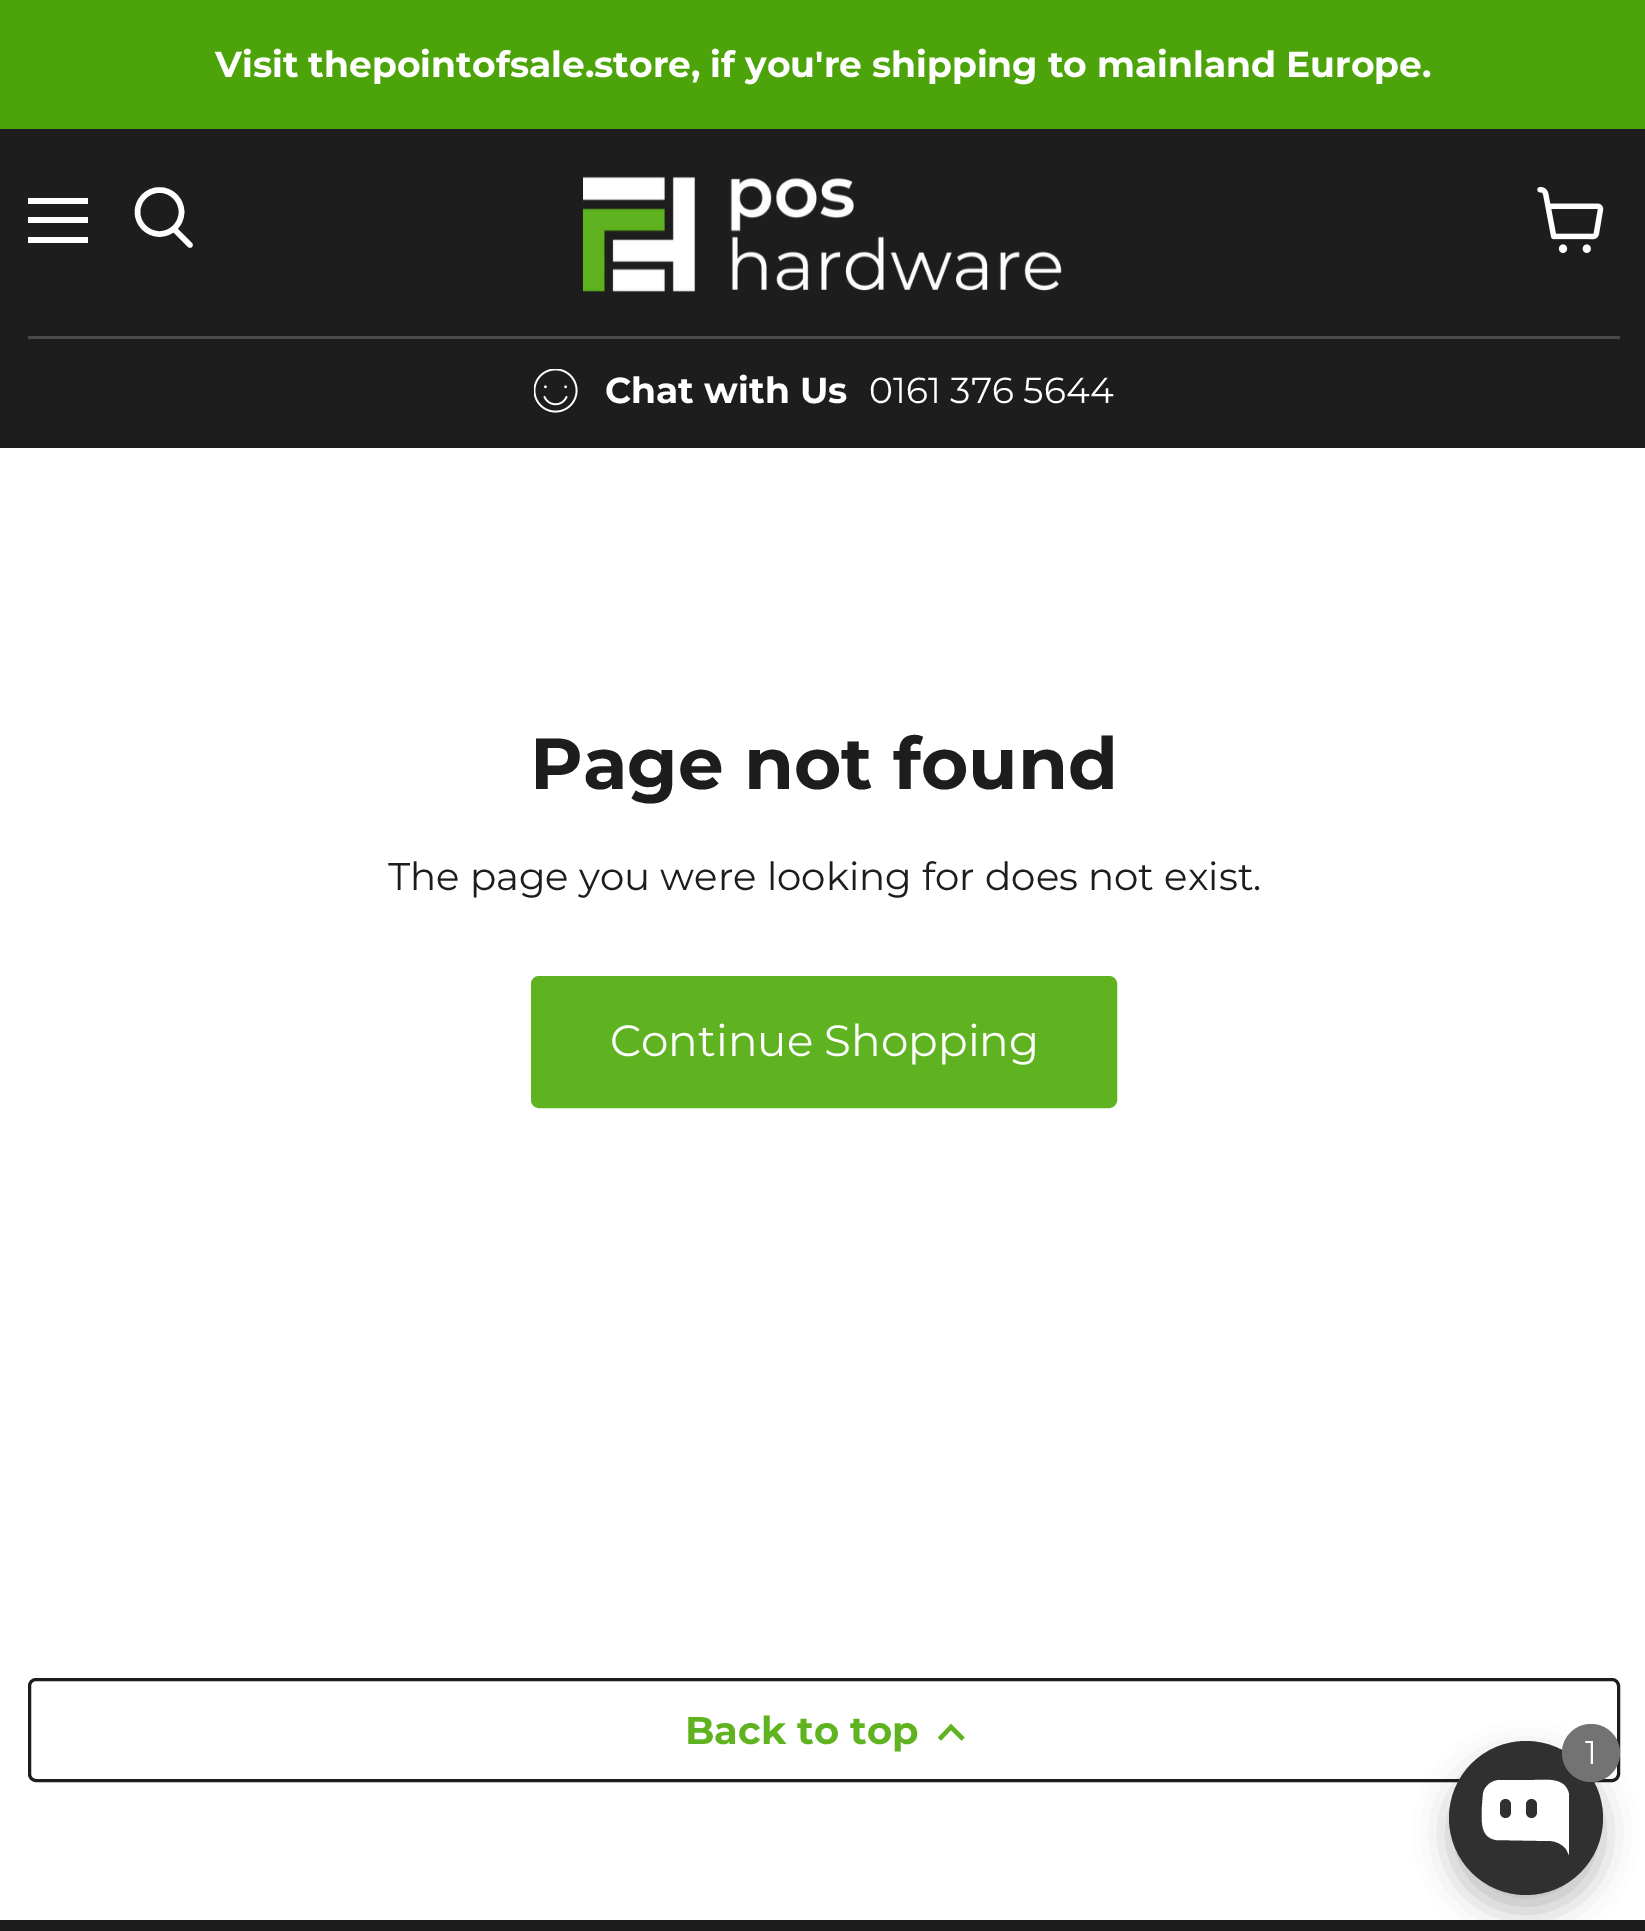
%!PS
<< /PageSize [1645 1931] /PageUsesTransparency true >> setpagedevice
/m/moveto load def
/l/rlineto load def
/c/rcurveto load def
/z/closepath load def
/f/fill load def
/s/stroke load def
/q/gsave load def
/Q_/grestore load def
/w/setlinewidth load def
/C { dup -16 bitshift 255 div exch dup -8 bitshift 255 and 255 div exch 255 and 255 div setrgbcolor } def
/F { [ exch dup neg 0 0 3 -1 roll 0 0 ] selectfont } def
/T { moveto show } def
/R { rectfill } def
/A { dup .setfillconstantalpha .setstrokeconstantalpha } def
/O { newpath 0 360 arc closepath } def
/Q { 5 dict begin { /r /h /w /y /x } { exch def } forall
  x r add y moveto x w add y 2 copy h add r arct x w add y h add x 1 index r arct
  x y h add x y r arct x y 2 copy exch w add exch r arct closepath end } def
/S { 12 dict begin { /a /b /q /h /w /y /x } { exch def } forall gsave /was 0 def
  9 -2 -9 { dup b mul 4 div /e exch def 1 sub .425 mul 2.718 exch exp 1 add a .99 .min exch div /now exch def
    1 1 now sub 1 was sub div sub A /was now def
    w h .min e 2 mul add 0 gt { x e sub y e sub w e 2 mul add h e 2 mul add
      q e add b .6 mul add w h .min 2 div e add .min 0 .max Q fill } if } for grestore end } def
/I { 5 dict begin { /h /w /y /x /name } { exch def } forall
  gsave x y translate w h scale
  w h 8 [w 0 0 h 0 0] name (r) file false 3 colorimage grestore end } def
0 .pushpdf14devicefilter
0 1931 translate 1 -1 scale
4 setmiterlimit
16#FFFFFF C
0 0 1645 1931 R
16#4CA40A C
0 0 1645 129 R
/Montserrat-Bold 36.1 F
16#FFFFFF C
215 77 m -.25 0 32 (Visit thepointofsale.store, if you're shipping to mainland Europe.) widthshow
16#1D1D1D C
0 129 1645 319 R
16#FFFFFF C
28 198 60 6 R
28 217 60 6 R
28 237 60 6 R
5.5 w
1 setlinecap
190 245 m -15.5 -15.5 l s
0 setlinecap
159.5 212 22 O s
(1.rgb) 1537 187 67 66 I
(2.rgb) 583 176 479 116 I
16#4A4A4A C
28 336 1592 3 R
(3.rgb) 534 369 44 44 I
16#FFFFFF C
(Chat with Us) 605 403 T
/Montserrat-Regular 36.1 F
(0161 376 5644) 869 403 T
/Montserrat-Bold 72.25 F
16#1D1D1D C
(Page not found) 530 789 T
/Montserrat-Regular 38.7 F
(The page you were looking for does not exist.) 388 890 T
16#5FB320 C
532.5 977.5 583 129 6.5 Q q f Q_
3 w
s
/Montserrat-Regular 43.75 F
16#FFFFFF C
(Continue Shopping) 610 1056 T
16#1D1D1D C
29.5 1679.5 1589 101 6.5 Q s
/Montserrat-Bold 38.5 F
16#5FB320 C
(Back to top) 685 1744 T
4.3 w
2 setlinecap
951 1727 m -10 10.5 l 951 1727 m 10.5 10.5 l s
16#1D1D1D C
0 1920 1645 11 R
16#000000 C
1449 1757 154 154 77 16.5 .25 S
16#303030 C
1526 1818 77 O f
16#FFFFFF C
1500 1780 m -8 0 -16 6 -17 14 c -1 12 l 0 13 -3 31 14 34 c 54 1 l 6 0 12 3 16 8 c 3 6 l 0 -1 l 0 -60 l -4 -17 -22 -14 -35 -14 c z eofill
16#303030 C
1500 1799 11 19 5.5 Q f
1526 1799 11 19 5.5 Q f
16#737373 C
1591 1753 29 O f
/Montserrat-Regular 33 F
16#FFFFFF C
(1) 1585 1764 T
.poppdf14devicefilter showpage
